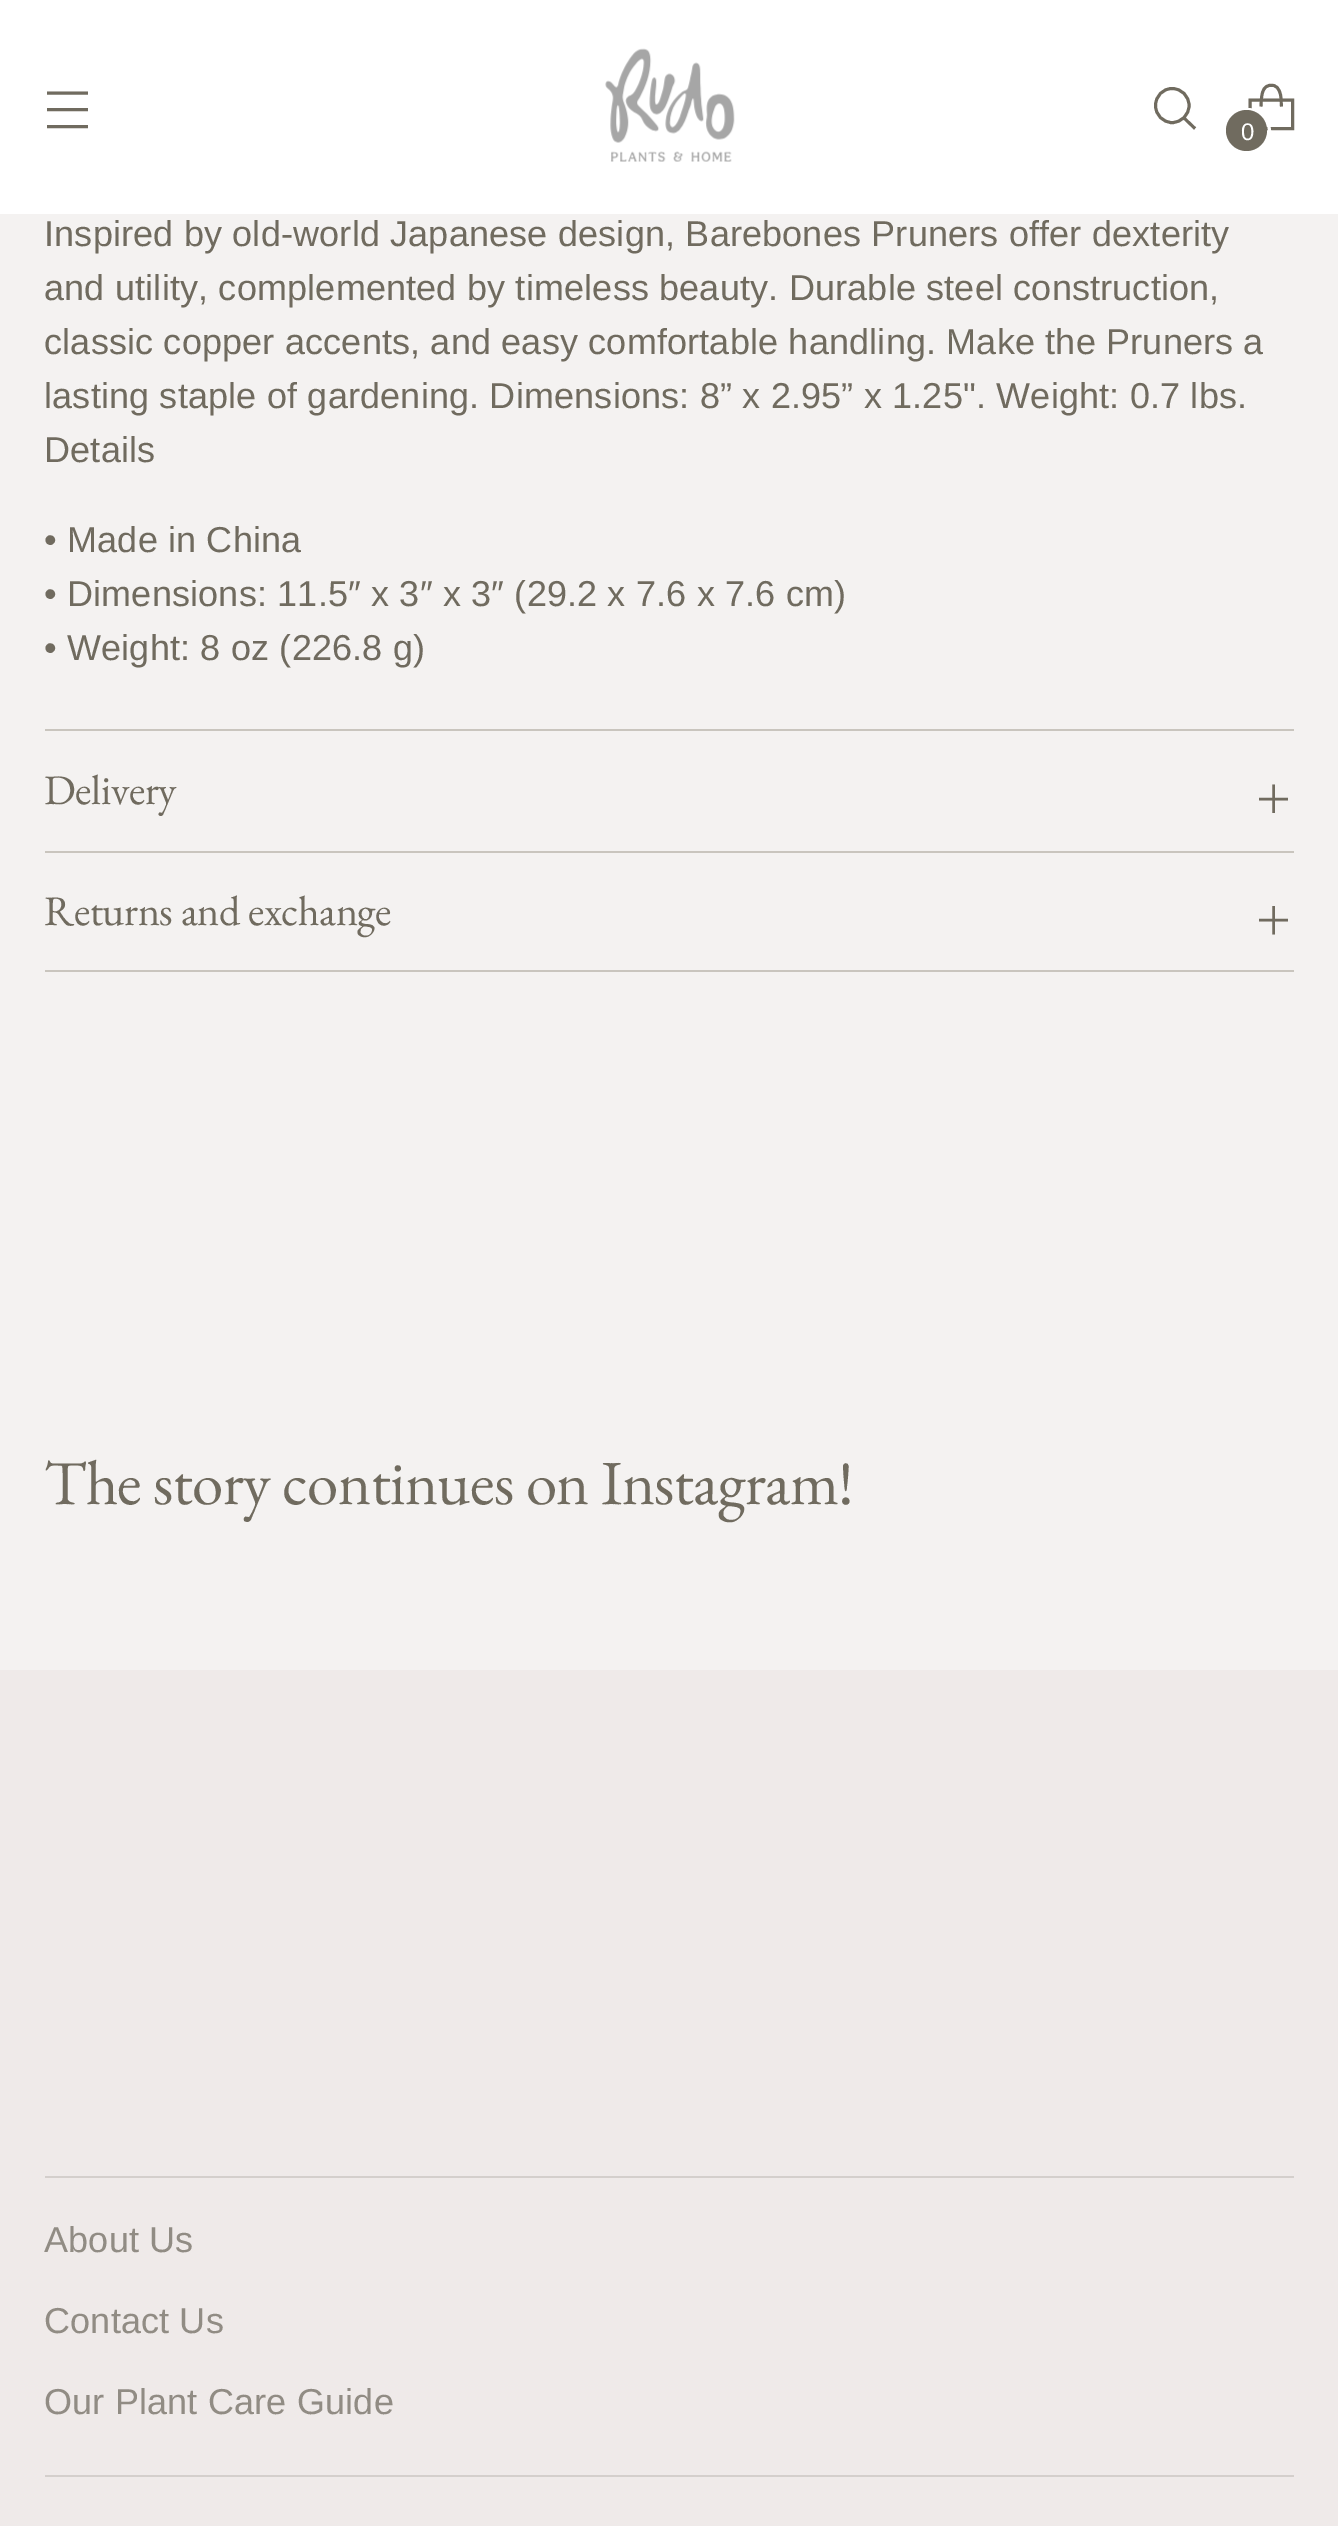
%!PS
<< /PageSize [1338 2526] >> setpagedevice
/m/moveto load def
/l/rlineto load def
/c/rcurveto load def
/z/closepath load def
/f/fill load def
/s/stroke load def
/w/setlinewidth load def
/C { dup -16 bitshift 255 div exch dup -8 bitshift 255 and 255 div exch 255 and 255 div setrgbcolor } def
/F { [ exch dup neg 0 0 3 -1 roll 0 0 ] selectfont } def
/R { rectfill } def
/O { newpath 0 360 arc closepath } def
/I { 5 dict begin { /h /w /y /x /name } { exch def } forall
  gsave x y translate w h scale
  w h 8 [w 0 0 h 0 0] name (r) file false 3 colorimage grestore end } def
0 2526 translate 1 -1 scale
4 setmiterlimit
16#F4F2F1 C
0 0 1338 2526 R
16#FFFFFF C
0 0 1338 214 R
16#706B5F C
2.9 w
47 109.5 m 41 0 l 47 93 m 41 0 l 47 126.5 m 41 0 l s
(1.rgb) 605 48 130 114 I
1 setlinecap
1172 122.5 m 9.5 0 17 -7.5 17 -17 c 0 -9.5 -7.5 -17 -17 -17 c -9 0 -16.5 7.5 -16.5 17 c 0 9.5 7.5 17 16.5 17 c z s
0 setlinecap
1184 118 m 11 10.5 l s
2 setlinejoin
1281.5 106.5 m -.5 -5 0 -10.5 -2 -15 c -1 -3 -3 -5.5 -6 -6 c -13 -2.5 -12 13.5 -12.5 21 c s
0 setlinejoin
1292.5 128.5 m 0 -28.5 l -42.5 0 l 0 28.5 l z s
16#FFFFFF C
3 w
1247.5 131.5 22 O s
16#706B5F C
1246.5 130.5 20.5 O f
/Arimo-Regular 24 F
16#FFFFFF C
1241 140 m .18 0 (0) ashow
16#C9C5BE C
45 729 1249 2 R
/Arimo-Regular 36 F
16#706B5F C
44 246 m .18 0 (Inspired by old-world Japanese design, Barebones Pruners offer dexterity) ashow
44 300 m .18 0 (and utility, complemented by timeless beauty. Durable steel construction,) ashow
44 354 m .18 0 (classic copper accents, and easy comfortable handling. Make the Pruners a) ashow
44 408 m .18 0 (lasting staple of gardening. Dimensions: 8” x 2.95” x 1.25". Weight: 0.7 lbs.) ashow
44 462 m .18 0 (Details) ashow
44 552 m .18 0 (• Made in China) ashow
44 606 m .18 0 (• Dimensions: 11.5″ x 3″ x 3″ \(29.2 x 7.6 x 7.6 cm\)) ashow
44 660 m .18 0 (• Weight: 8 oz \(226.8 g\)) ashow
16#C9C5BE C
45 851 1249 2 R
/EBGaramond-Regular 42 F
16#706B5F C
44 804 m -.4 0 (Delivery) ashow
2.6 w
1259 799 m 14.5 0 l 1288 799 m -14.5 0 l 1273.5 799 m 0 -14.5 l 1273.5 799 m 0 14 l s
16#C9C5BE C
45 970 1249 2 R
16#706B5F C
44 925 m -.4 0 (Returns and exchange) ashow
1259 920 m 14.5 0 l 1288 920 m -14.5 0 l 1273.5 920 m 0 -14 l 1273.5 920 m 0 14.5 l s
/EBGaramond-Regular 63 F
44 1504 m -.6 0 (The story continues on Instagram!) ashow
16#EFEAE9 C
0 1670 1338 856 R
16#D4CFCC C
45 2176 1249 2 R
45 2475 1249 2 R
/Arimo-Regular 36 F
16#918C84 C
44 2252 m .18 0 (About Us) ashow
44 2333 m .18 0 (Contact Us) ashow
44 2414 m .18 0 (Our Plant Care Guide) ashow
showpage
